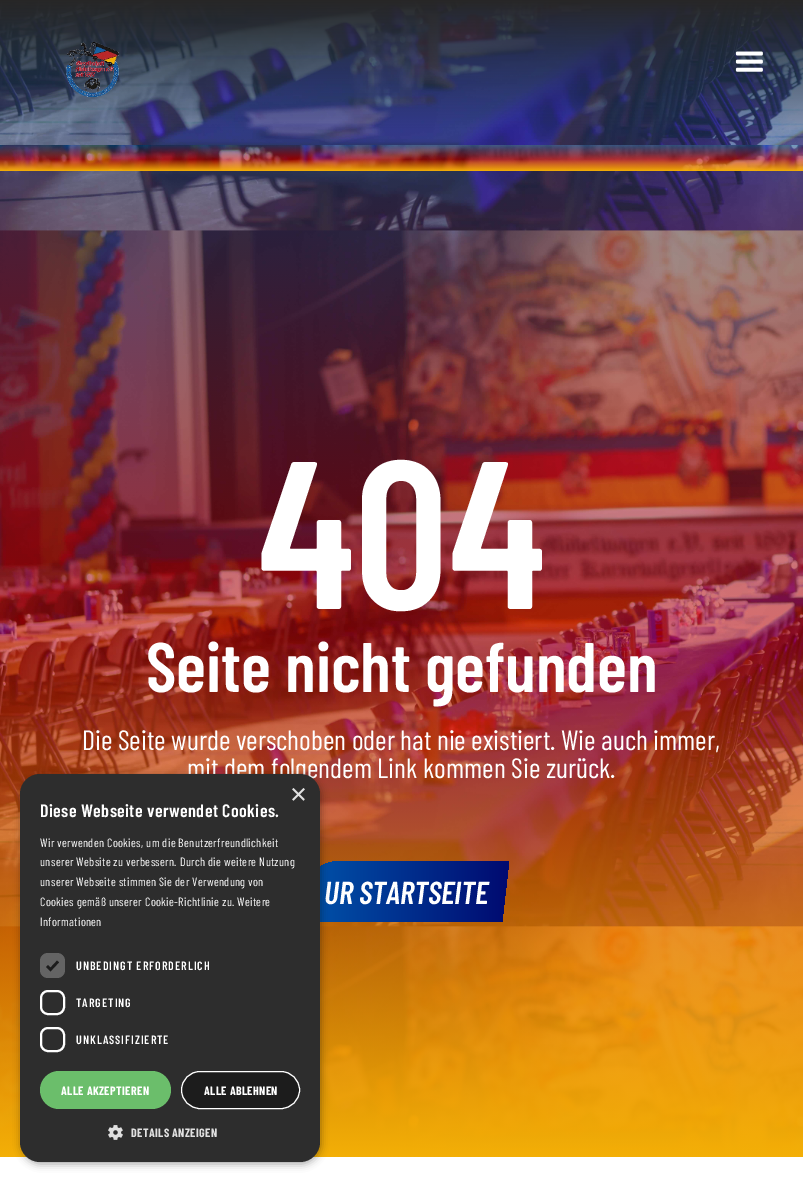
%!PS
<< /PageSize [803 1182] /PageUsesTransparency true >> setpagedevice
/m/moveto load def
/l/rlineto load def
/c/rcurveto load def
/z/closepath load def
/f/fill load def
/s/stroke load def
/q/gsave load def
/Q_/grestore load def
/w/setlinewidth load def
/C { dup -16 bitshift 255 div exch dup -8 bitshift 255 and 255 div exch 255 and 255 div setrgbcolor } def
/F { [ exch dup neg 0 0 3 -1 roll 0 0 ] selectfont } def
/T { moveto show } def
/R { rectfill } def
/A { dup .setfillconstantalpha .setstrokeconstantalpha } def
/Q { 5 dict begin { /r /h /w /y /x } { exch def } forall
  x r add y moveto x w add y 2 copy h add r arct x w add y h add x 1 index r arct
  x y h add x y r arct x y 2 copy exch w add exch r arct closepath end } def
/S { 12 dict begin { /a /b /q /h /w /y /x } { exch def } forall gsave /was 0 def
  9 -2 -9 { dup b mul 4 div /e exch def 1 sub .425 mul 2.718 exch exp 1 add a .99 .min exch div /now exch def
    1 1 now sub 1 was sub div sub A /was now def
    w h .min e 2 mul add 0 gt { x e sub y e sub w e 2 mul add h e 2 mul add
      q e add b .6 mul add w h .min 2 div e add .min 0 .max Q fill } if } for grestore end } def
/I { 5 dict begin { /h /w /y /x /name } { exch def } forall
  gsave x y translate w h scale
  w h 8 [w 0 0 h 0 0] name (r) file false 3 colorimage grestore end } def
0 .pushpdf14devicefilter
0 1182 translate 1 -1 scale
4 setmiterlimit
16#FFFFFF C
0 0 803 1182 R
(1.rgb) 0 0 803 1157 I
(2.rgb) 66 41 53 57 I
(3.rgb) 735 51 28 21 I
(4.rgb) 0 145 803 26 I
/BarlowCondensed-SemiBold 210 F
(404) 258 609 T
/BarlowCondensed-SemiBold 70 F
(Seite nicht gefunden) 146 692 T
/BarlowCondensed-Regular 28 F
(Die Seite wurde verschoben oder hat nie existiert. Wie auch immer,) 82 750 T
(mit dem folgendem Link kommen Sie zurück.) 187 778 T
q 341 861 m 168 0 l -7 61 l -208 0 l 2 -21 l 3 -22 23 -40 45 -40 c z clip newpath
<< /ShadingType 2 /ColorSpace /DeviceRGB /Coords [297 892 506 892] /Extend [true true] /Function << /FunctionType 2 /Domain [0 1] /C0 [0 .341 .678] /C1 [0 .043 .443] /N 1 >> >> shfill Q_
/BarlowCondensed-SemiBoldItalic 31.75 F
324 904 m -.1 0 (UR STARTSEITE) ashow
16#000000 C
21 776 300 388 20 4 .35 S
16#2D2D2D C
20 774 300 388 20 Q f
/LiberationSans-Regular 29 F
16#E0E0E0 C
(×) 290 804 T
/BarlowCondensed-SemiBold 18 F
16#FFFFFF C
40 817 m .4 0 (Diese Webseite verwendet Cookies.) ashow
/BarlowCondensed-Regular 12 F
40 847 m .3 0 (Wir verwenden Cookies, um die Benutzerfreundlichkeit) ashow
40 866 m .3 0 (unserer Website zu verbessern. Durch die weitere Nutzung) ashow
40 886 m .3 0 (unserer Webseite stimmen Sie der Verwendung von) ashow
40 906 m .3 0 (Cookies gemäß unserer Cookie-Richtlinie zu. Weitere) ashow
40 926 m .3 0 (Informationen) ashow
16#646464 C
40 953 25 25 8 Q f
16#1C1C1C C
2.6 w
47 966 m 3.5 3.5 l 7.5 -8 l s
/BarlowCondensed-SemiBold 12 F
16#FFFFFF C
76 970 m 1 0 (UNBEDINGT ERFORDERLICH) ashow
2 w
41 991 23 23 7 Q s
76 1007 m 1 0 (TARGETING) ashow
41 1028 23 23 7 Q s
76 1044 m 1 0 (UNKLASSIFIZIERTE) ashow
16#6BBE6B C
40 1071 131 38 19 Q f
/BarlowCondensed-Bold 12 F
16#FFFFFF C
61 1095 m .4 0 (ALLE AKZEPTIEREN) ashow
16#1C1C1C C
181.5 1071.5 118 37 18.5 Q q f Q_
16#FFFFFF C
1 w
s
204 1095 m .4 0 (ALLE ABLEHNEN) ashow
(5.rgb) 108 1125 15 15 I
16#E0E0E0 C
131 1137 m .4 0 (DETAILS ANZEIGEN) ashow
.poppdf14devicefilter showpage
